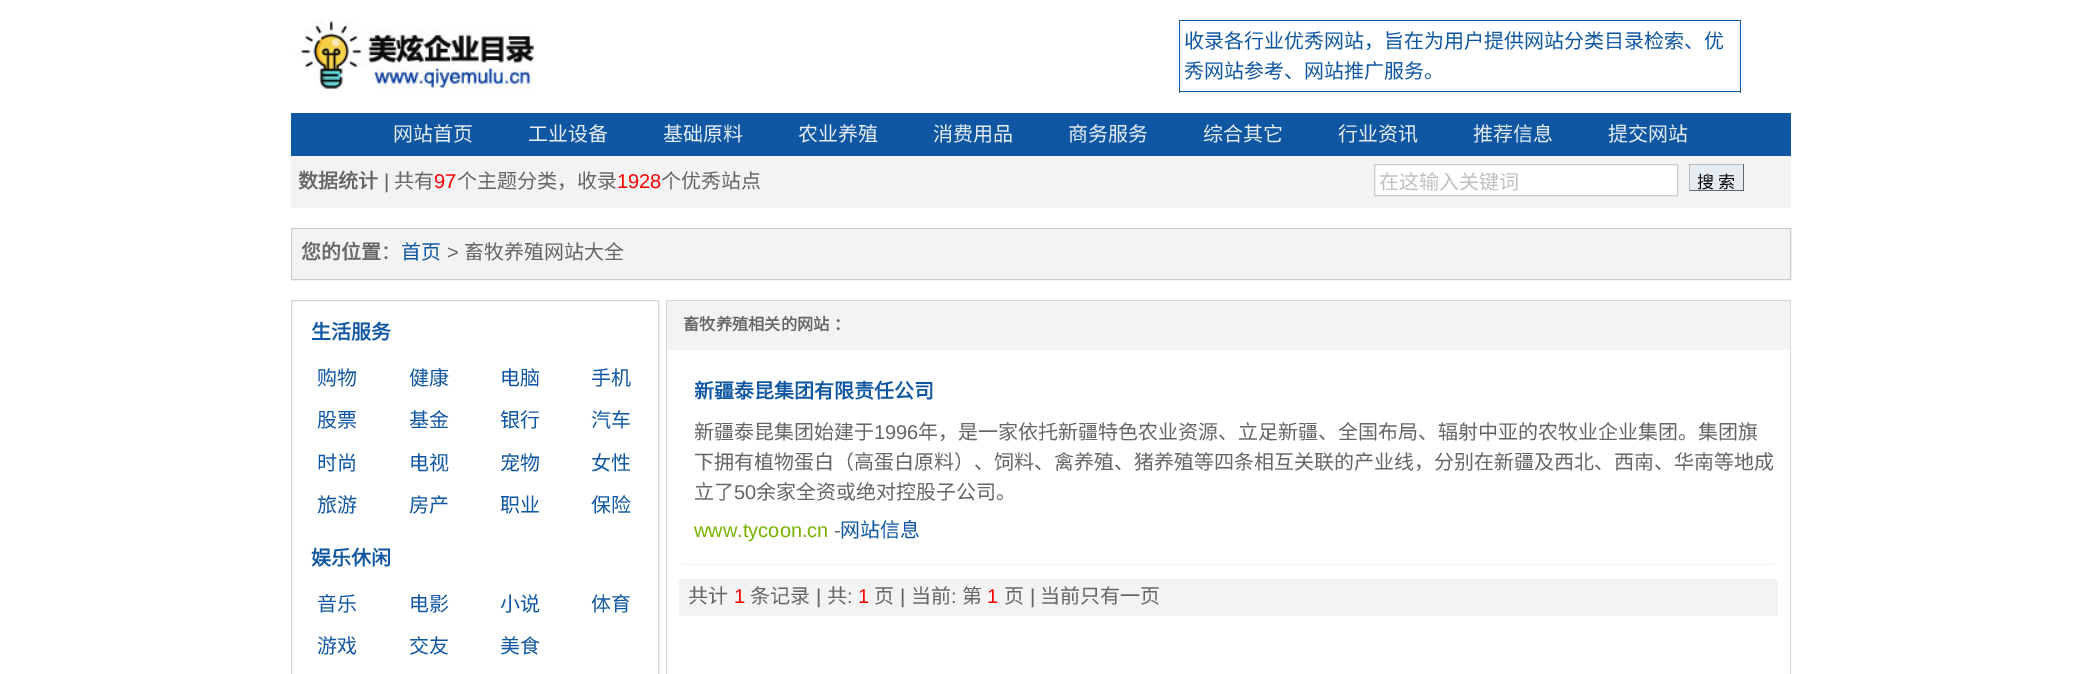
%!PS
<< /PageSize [2081 674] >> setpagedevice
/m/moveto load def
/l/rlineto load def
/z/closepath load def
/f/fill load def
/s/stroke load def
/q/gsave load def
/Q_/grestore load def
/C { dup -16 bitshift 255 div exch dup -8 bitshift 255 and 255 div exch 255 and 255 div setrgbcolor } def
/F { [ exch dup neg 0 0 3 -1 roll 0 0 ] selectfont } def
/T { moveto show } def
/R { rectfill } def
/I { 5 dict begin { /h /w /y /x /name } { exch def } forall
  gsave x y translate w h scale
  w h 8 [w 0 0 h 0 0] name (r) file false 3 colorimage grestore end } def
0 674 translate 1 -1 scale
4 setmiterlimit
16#FFFFFF C
0 0 2081 674 R
(1.rgb) 295 19 239 70 I
16#0F57A2 C
1179 20 562 1 R
1740 20 1 73 R
1179 91 562 1 R
1179 20 1 73 R
/NotoSansCJKSC-Regular 20 F
(收录各行业优秀网站，旨在为用户提供网站分类目录检索、优) 1184 48 T
(秀网站参考、网站推广服务。) 1184 78 T
291 113 1500 43 R
16#E5EDF2 C
(网站首页) 393 141 T
(工业设备) 528 141 T
(基础原料) 663 141 T
(农业养殖) 798 141 T
(消费用品) 933 141 T
(商务服务) 1068 141 T
(综合其它) 1203 141 T
(行业资讯) 1338 141 T
(推荐信息) 1473 141 T
(提交网站) 1608 141 T
16#F3F3F3 C
291 156 1500 52 R
/NotoSansCJKSC-Bold 20 F
16#666666 C
(数据统计) 298 188 T
/LiberationSans-Regular 20 F
(|) 384 188 T
/NotoSansCJKSC-Regular 20 F
(共有) 394 188 T
/LiberationSans-Regular 20 F
16#FF0000 C
(97) 434 188 T
/NotoSansCJKSC-Regular 20 F
16#666666 C
(个主题分类，收录) 457 188 T
/LiberationSans-Regular 20 F
16#FF0000 C
(1928) 617 188 T
/NotoSansCJKSC-Regular 20 F
16#666666 C
(个优秀站点) 661 188 T
16#FFFFFF C
1374.5 164.5 m 303 0 l 0 31 l -303 0 l z q f Q_
16#CCCCCC C
s
16#C0C0C0 C
(在这输入关键词) 1379 189 T
16#E5EDF2 C
1690 165 53 25 R
16#BBBBBB C
1689 164 55 1 R
16#666666 C
1743 164 1 27 R
1689 190 55 1 R
16#BBBBBB C
1689 164 1 27 R
/NotoSansCJKSC-Regular 17 F
16#000000 C
(搜 索) 1697 188 T
16#CCCCCC C
291.5 228.5 1499 51 rectstroke
16#F3F3F3 C
293 229 1497 50 R
/NotoSansCJKSC-Bold 20 F
16#666666 C
(您的位置) 301 259 T
/NotoSansCJKSC-Regular 20 F
(：) 381 259 T
16#0F57A2 C
(首页) 401 259 T
/LiberationSans-Regular 20 F
16#666666 C
(>) 447 259 T
/NotoSansCJKSC-Regular 20 F
(畜牧养殖网站大全) 464 259 T
16#D6D6D6 C
291.5 300.5 367 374 rectstroke
/NotoSansCJKSC-Bold 20 F
16#0F57A2 C
(生活服务) 311 339 T
/NotoSansCJKSC-Regular 20 F
(购物) 317 385 T
(健康) 409 385 T
(电脑) 500 385 T
(手机) 591 385 T
(股票) 317 427 T
(基金) 409 427 T
(银行) 500 427 T
(汽车) 591 427 T
(时尚) 317 470 T
(电视) 409 470 T
(宠物) 500 470 T
(女性) 591 470 T
(旅游) 317 512 T
(房产) 409 512 T
(职业) 500 512 T
(保险) 591 512 T
/NotoSansCJKSC-Bold 20 F
(娱乐休闲) 311 565 T
/NotoSansCJKSC-Regular 20 F
(音乐) 317 611 T
(电影) 409 611 T
(小说) 500 611 T
(体育) 591 611 T
(游戏) 317 653 T
(交友) 409 653 T
(美食) 500 653 T
16#D6D6D6 C
666 300 1125 1 R
1790 300 1 374 R
666 300 1 374 R
16#F3F3F3 C
667 301 1123 49 R
/NotoSansCJKSC-Bold 16.25 F
16#666666 C
683 330 m 1 0 32 (畜牧养殖相关的网站 ：) widthshow
/NotoSansCJKSC-Bold 20 F
16#0F57A2 C
(新疆泰昆集团有限责任公司) 694 398 T
/NotoSansCJKSC-Regular 20 F
16#666666 C
(新疆泰昆集团始建于) 694 439 T
/LiberationSans-Regular 20 F
(1996) 874 439 T
/NotoSansCJKSC-Regular 20 F
(年，是一家依托新疆特色农业资源、立足新疆、全国布局、辐射中亚的农牧业企业集团。集团旗) 918 439 T
(下拥有植物蛋白（高蛋白原料）、饲料、禽养殖、猪养殖等四条相互关联的产业线，分别在新疆及西北、西南、华南等地成) 694 469 T
(立了) 694 499 T
/LiberationSans-Regular 20 F
(50) 734 499 T
/NotoSansCJKSC-Regular 20 F
(余家全资或绝对控股子公司。) 756 499 T
/LiberationSans-Regular 20 F
16#78B200 C
(www.tycoon.cn) 694 537 T
16#666666 C
(-) 834 537 T
/NotoSansCJKSC-Regular 20 F
16#0F57A2 C
(网站信息) 840 537 T
16#F3F3F3 C
683 564 1091 1 R
679 579 1099 37 R
16#666666 C
(共计) 688 603 T
/LiberationSans-Regular 20 F
16#FF0000 C
(1) 734 603 T
/NotoSansCJKSC-Regular 20 F
16#666666 C
(条记录) 750 603 T
/LiberationSans-Regular 20 F
(|) 816 603 T
/NotoSansCJKSC-Regular 20 F
(共) 827 603 T
/LiberationSans-Regular 20 F
(:) 847 603 T
16#FF0000 C
(1) 858 603 T
/NotoSansCJKSC-Regular 20 F
16#666666 C
(页) 874 603 T
/LiberationSans-Regular 20 F
(|) 900 603 T
/NotoSansCJKSC-Regular 20 F
(当前) 911 603 T
/LiberationSans-Regular 20 F
(:) 951 603 T
/NotoSansCJKSC-Regular 20 F
(第) 962 603 T
/LiberationSans-Regular 20 F
16#FF0000 C
(1) 987 603 T
/NotoSansCJKSC-Regular 20 F
16#666666 C
(页) 1004 603 T
/LiberationSans-Regular 20 F
(|) 1030 603 T
/NotoSansCJKSC-Regular 20 F
(当前只有一页) 1040 603 T
showpage
